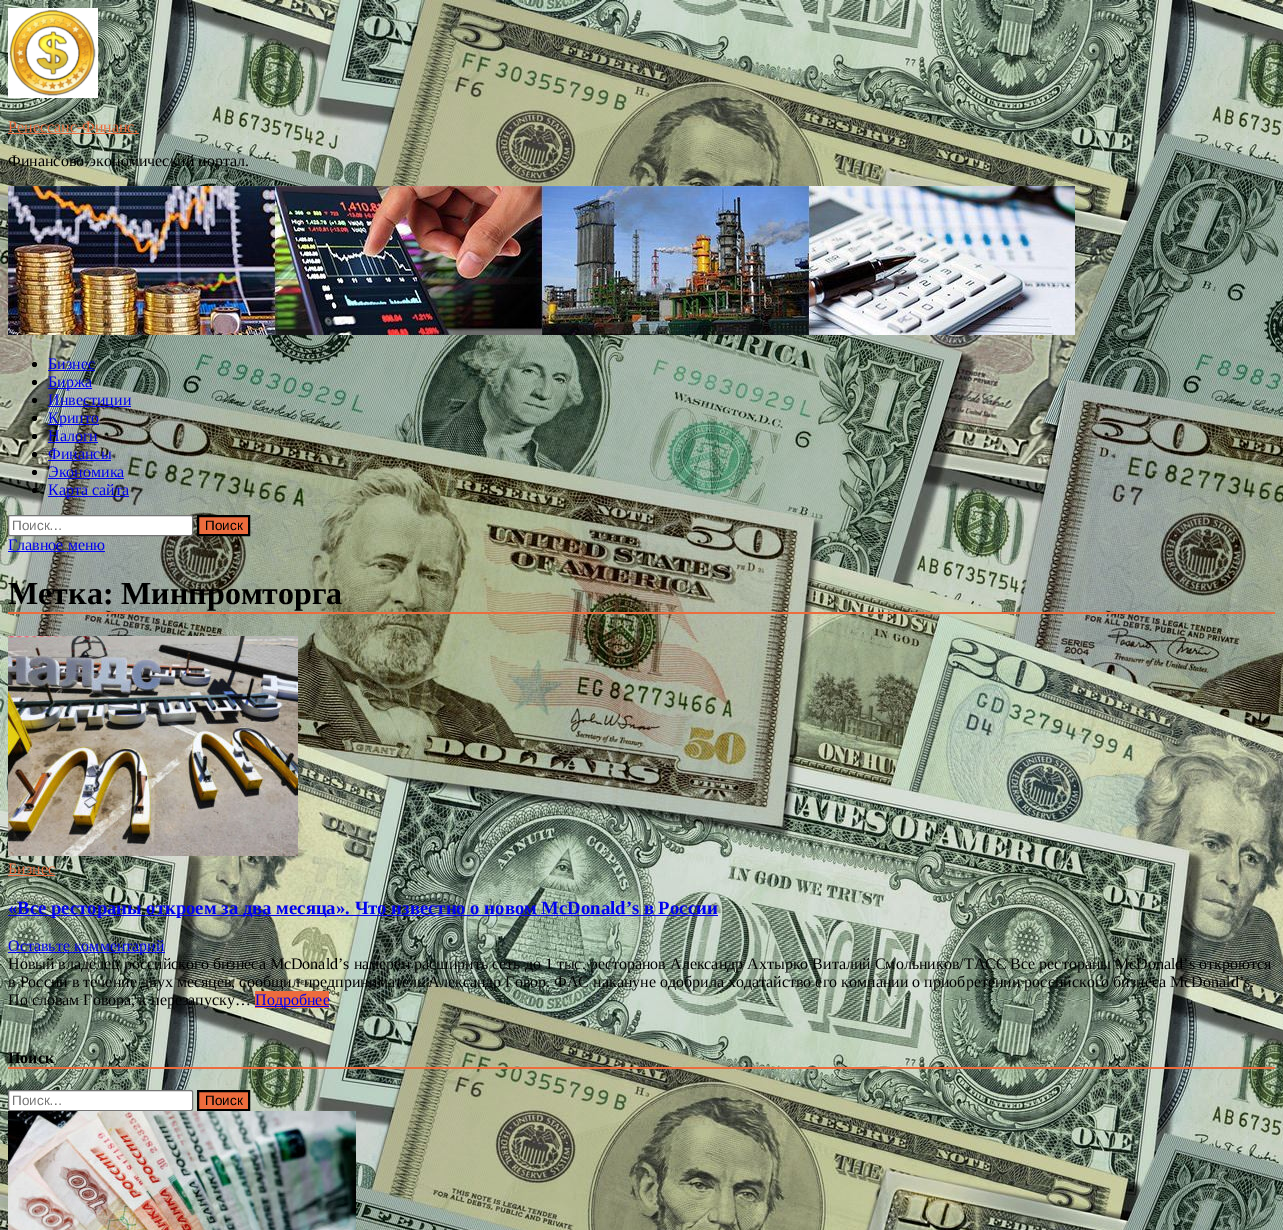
%!PS
<< /PageSize [1283 1230] >> setpagedevice
/m/moveto load def
/l/rlineto load def
/z/closepath load def
/f/fill load def
/s/stroke load def
/q/gsave load def
/Q_/grestore load def
/w/setlinewidth load def
/C { dup -16 bitshift 255 div exch dup -8 bitshift 255 and 255 div exch 255 and 255 div setrgbcolor } def
/F { [ exch dup neg 0 0 3 -1 roll 0 0 ] selectfont } def
/T { moveto show } def
/R { rectfill } def
/O { newpath 0 360 arc closepath } def
/Q { 5 dict begin { /r /h /w /y /x } { exch def } forall
  x r add y moveto x w add y 2 copy h add r arct x w add y h add x 1 index r arct
  x y h add x y r arct x y 2 copy exch w add exch r arct closepath end } def
/I { 5 dict begin { /h /w /y /x /name } { exch def } forall
  gsave x y translate w h scale
  w h 8 [w 0 0 h 0 0] name (r) file false 3 colorimage grestore end } def
0 1230 translate 1 -1 scale
4 setmiterlimit
16#FFFFFF C
0 0 1283 1230 R
(1.rgb) 0 0 1283 1230 I
(2.rgb) 8 8 90 90 I
/LiberationSerif-Regular 16 F
16#ED6C3D C
(Ренессанс-Финанс.) 8 132 T
8 133 131 1 R
16#000000 C
(Финансово-экономический портал.) 8 166 T
(3.rgb) 8 186 1067 149 I
34.5 364.5 2.5 O f
16#0000EE C
(Бизнес) 48 369 T
48 370 47 1 R
16#000000 C
34.5 382.5 2.5 O f
16#0000EE C
48 388 44 1 R
(Биржа) 48 387 T
16#000000 C
34.5 400.5 2.5 O f
16#0000EE C
48 406 83 1 R
(Инвестиции) 48 405 T
16#000000 C
34.5 418.5 2.5 O f
16#0000EE C
48 424 51 1 R
(Крипто) 48 423 T
16#000000 C
34.5 436.5 2.5 O f
16#0000EE C
(Налоги) 48 441 T
48 442 50 1 R
16#000000 C
34.5 454.5 2.5 O f
16#0000EE C
(Финансы) 48 459 T
48 460 63 1 R
16#000000 C
34.5 472.5 2.5 O f
16#0000EE C
(Экономика) 48 477 T
48 478 76 1 R
16#000000 C
34.5 490.5 2.5 O f
16#0000EE C
48 496 81 1 R
(Карта сайта) 48 495 T
16#FFFFFF C
8.5 515.5 184 20 1.5 Q q f Q_
16#767676 C
s
/LiberationSans-Regular 13.5 F
16#757575 C
(Поиск…) 12 530 T
16#ED6C3D C
198 516 m 51 0 l 0 19 l -51 0 l z q f Q_
16#000000 C
2 w
s
(Поиск) 205 530 T
/LiberationSerif-Regular 16 F
16#0000EE C
(Главное меню) 8 550 T
8 551 97 1 R
16#ED6C3D C
8 612 1267 2 R
/LiberationSerif-Bold 32 F
16#000000 C
(Метка: Минпромторга) 8 604 T
(4.rgb) 8 636 290 220 I
/LiberationSerif-Regular 16 F
16#ED6C3D C
(Бизнес) 8 874 T
8 875 47 1 R
16#0000EE C
8 915 710 1 R
/LiberationSerif-Bold 18.7 F
(«Все рестораны откроем за два месяца». Что известно о новом McDonald’s в России) 8 914 T
8 952 157 1 R
/LiberationSerif-Regular 16 F
(Оставьте комментарий) 8 951 T
16#000000 C
(Новый владелец российского бизнеса McDonald’s намерен расширить сеть до 1 тыс. ресторанов Александр Ахтырко Виталий Смольников/ТАСС Все рестораны McDonald’s откроются) 8 969 T
(в России в течение двух месяцев, сообщил предприниматель Александр Говор. ФАС накануне одобрила ходатайство его компании о приобретении российского бизнеса McDonald’s.) 8 987 T
(По словам Говора, к перезапуску…) 8 1005 T
16#ED6C3D C
255 991 74 17 R
16#0000EE C
255 1006 74 1 R
(Подробнее) 255 1005 T
16#ED6C3D C
8 1067 1267 2 R
/LiberationSerif-Bold 16 F
16#000000 C
(Поиск) 8 1063 T
16#FFFFFF C
8.5 1090.5 184 20 1.5 Q q f Q_
16#767676 C
1 w
s
/LiberationSans-Regular 13.5 F
16#757575 C
(Поиск…) 12 1105 T
16#ED6C3D C
198 1091 m 51 0 l 0 19 l -51 0 l z q f Q_
16#000000 C
2 w
s
(Поиск) 205 1105 T
(5.rgb) 8 1111 348 119 I
showpage
